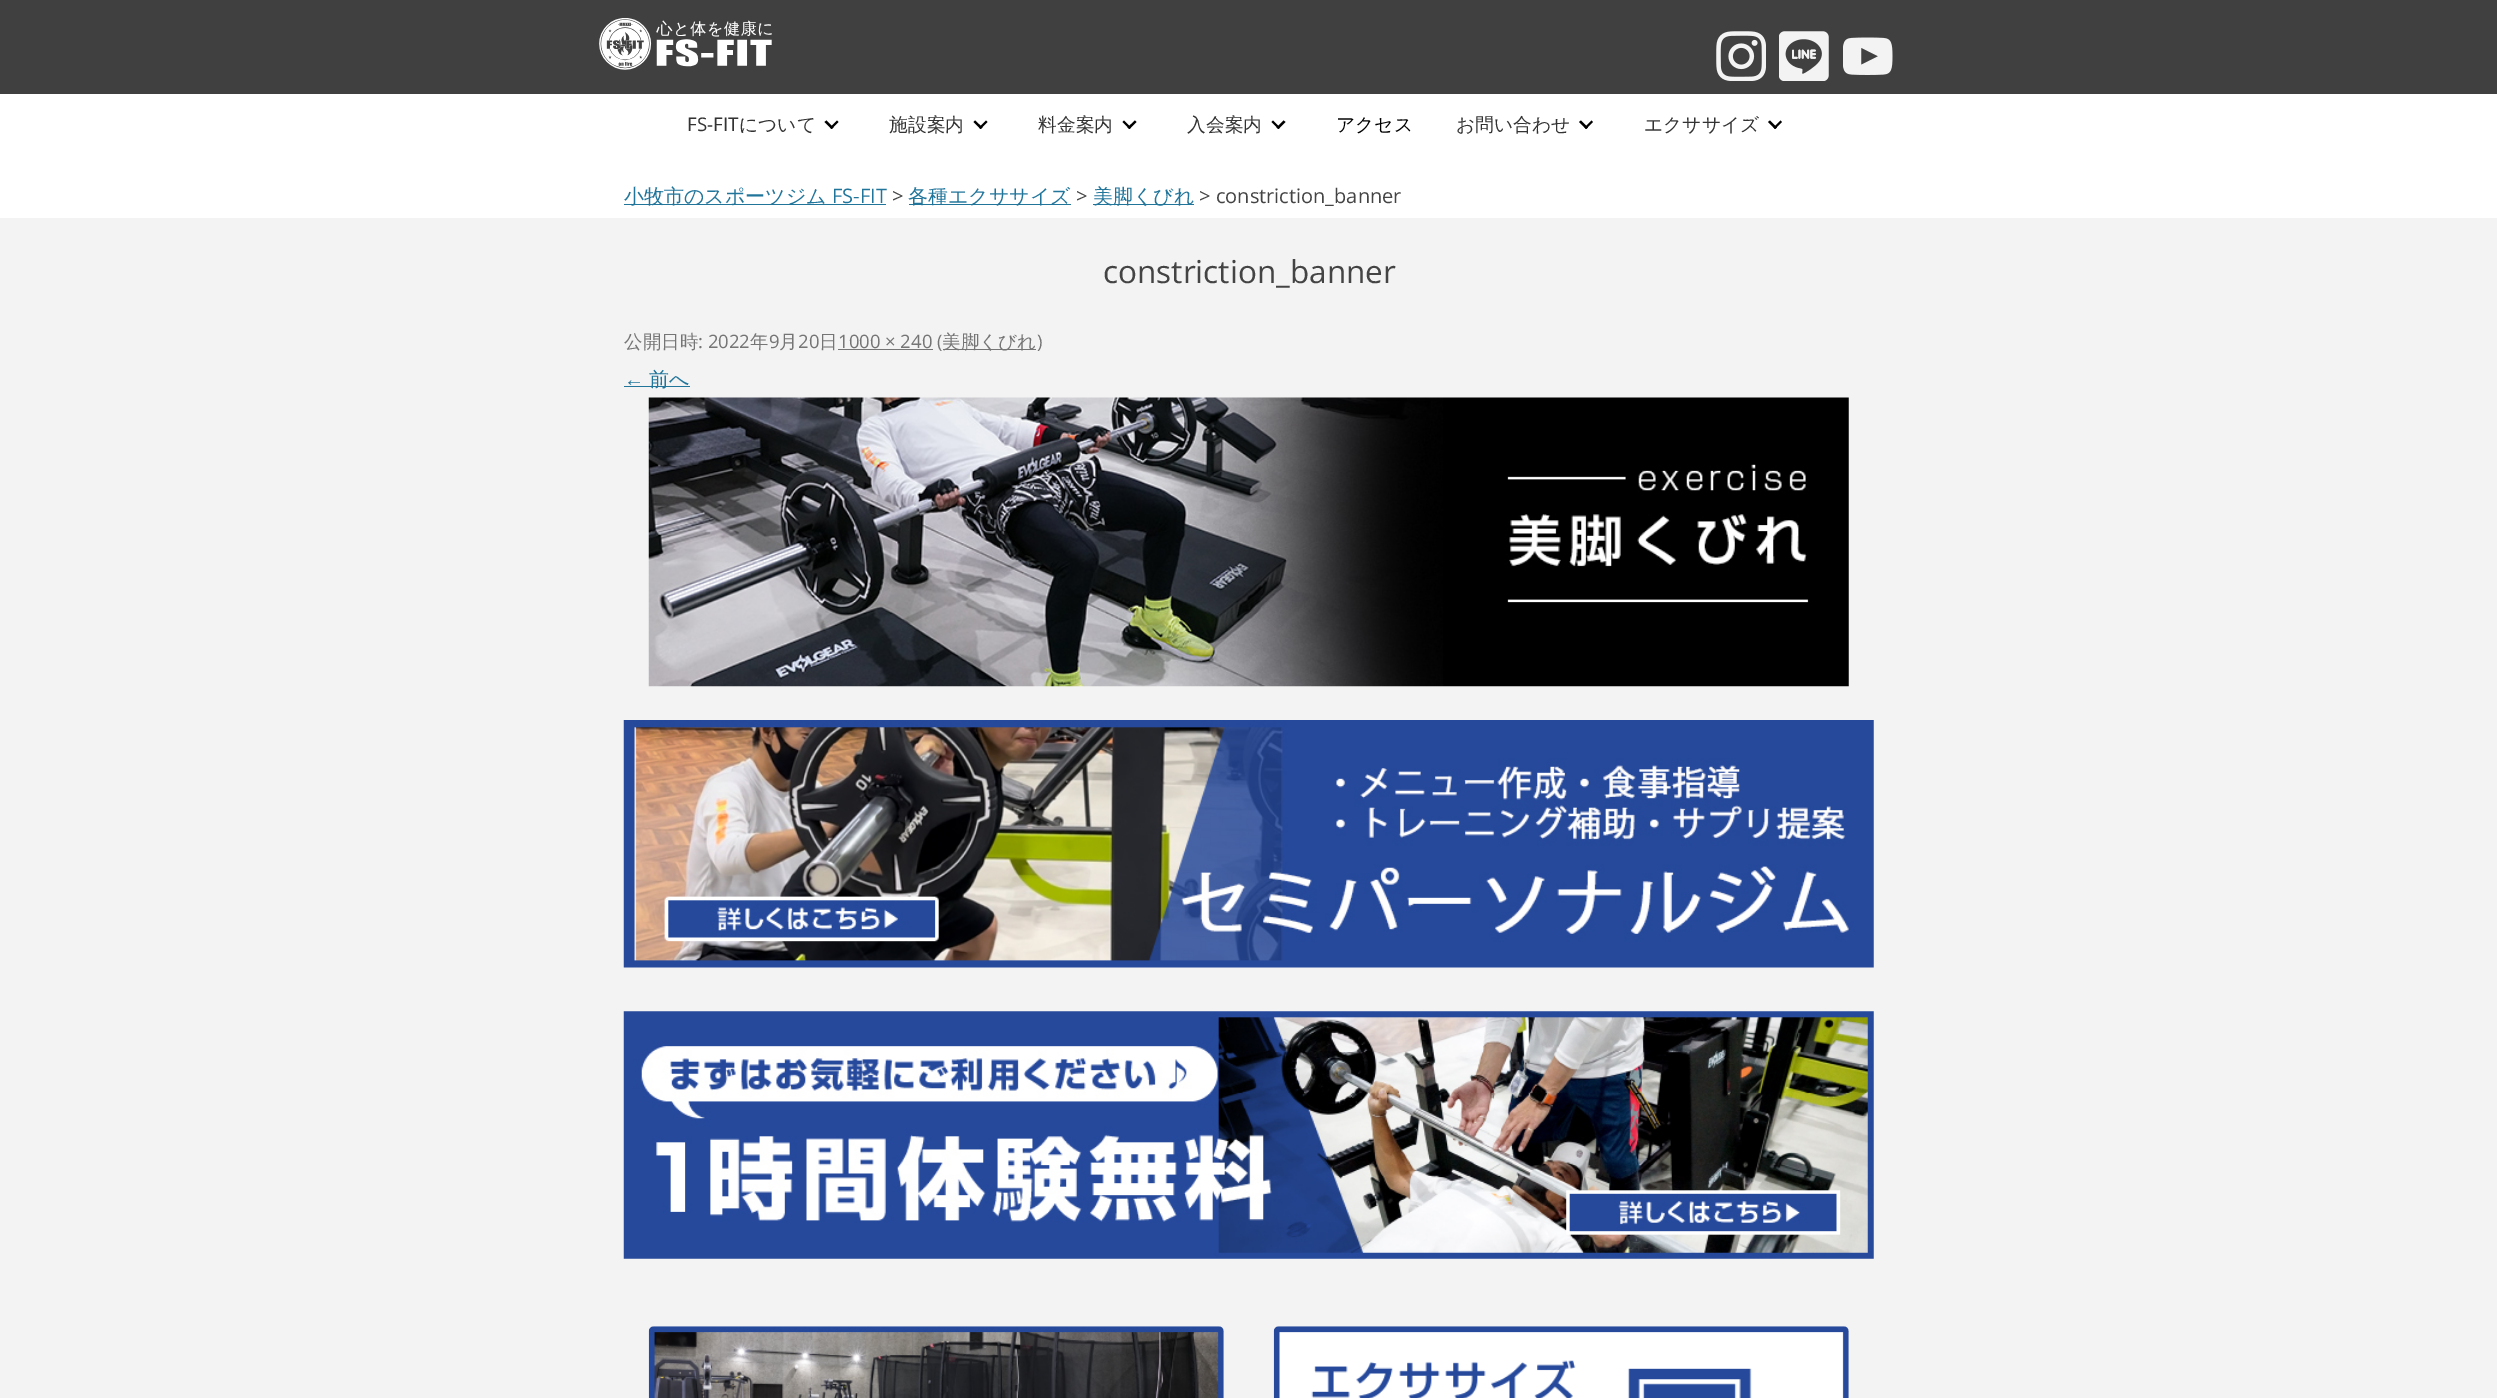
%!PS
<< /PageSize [2497 1398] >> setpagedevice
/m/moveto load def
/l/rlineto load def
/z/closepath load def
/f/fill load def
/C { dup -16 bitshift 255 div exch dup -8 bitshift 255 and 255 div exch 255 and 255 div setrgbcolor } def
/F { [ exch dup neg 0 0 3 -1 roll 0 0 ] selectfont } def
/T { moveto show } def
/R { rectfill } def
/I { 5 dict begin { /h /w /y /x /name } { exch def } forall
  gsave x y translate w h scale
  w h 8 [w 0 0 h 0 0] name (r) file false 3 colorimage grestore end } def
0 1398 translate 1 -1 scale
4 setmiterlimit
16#FFFFFF C
0 0 2497 1398 R
16#404040 C
0 0 2497 94 R
(1.rgb) 599 18 173 52 I
(2.rgb) 1716 31 50 50 I
(3.rgb) 1779 31 50 50 I
(4.rgb) 1843 37 50 38 I
/OpenSans-Regular 18.75 F
16#333333 C
(FS-FIT) 687 131 T
/WenQuanYiZenHei-Medium 18.75 F
(について) 739 131 T
16#000000 C
838.5 122 m -7 7 l -1.5 -1.5 l 7 -7 l z f
833.5 127.5 m -2 1.5 l -7 -7 l 2 -1.5 l z f
16#333333 C
(施設案内) 889 131 T
16#000000 C
987.5 122 m -7 7 l -1.5 -1.5 l 7 -7 l z f
982.5 127.5 m -2 1.5 l -7 -7 l 1.5 -1.5 l z f
16#333333 C
(料金案内) 1038 131 T
16#000000 C
1136.5 122 m -7 7 l -2 -1.5 l 7.5 -7 l z f
1131 127.5 m -1.5 1.5 l -7 -7 l 1.5 -1.5 l z f
16#333333 C
(入会案内) 1187 131 T
16#000000 C
1285.5 122 m -7 7 l -2 -1.5 l 7 -7 l z f
1280 127.5 m -1.5 1.5 l -7 -7 l 1.5 -1.5 l z f
(アクセス) 1336 131 T
16#333333 C
(お問い合わせ) 1456 131 T
16#000000 C
1593 122 m -7 7 l -1.5 -1.5 l 7 -7 l z f
1588 127.5 m -2 1.5 l -7 -7 l 2 -1.5 l z f
16#333333 C
(エクササイズ) 1644 131 T
16#000000 C
1782 122 m -7 7 l -1.5 -1.5 l 7 -7 l z f
1777 127.5 m -2 1.5 l -7 -7 l 2 -1.5 l z f
16#21759B C
624 204 262 1 R
/WenQuanYiZenHei-Medium 20 F
(小牧市のスポーツジム) 624 203 T
/OpenSans-Regular 20 F
(FS-FIT) 832 203 T
16#444444 C
(>) 892 203 T
16#21759B C
909 204 162 1 R
/WenQuanYiZenHei-Medium 20 F
(各種エクササイズ) 908 203 T
/OpenSans-Regular 20 F
16#444444 C
(>) 1076 203 T
16#21759B C
1093 204 101 1 R
/WenQuanYiZenHei-Medium 20 F
(美脚くびれ) 1093 203 T
/OpenSans-Regular 20 F
16#444444 C
(> constriction_banner) 1199 203 T
16#F3F3F3 C
0 218 2497 1180 R
/OpenSans-Regular 31.5 F
16#444444 C
(constriction_banner) 1103 283 T
/WenQuanYiZenHei-Medium 18.5 F
16#757575 C
(公開日時) 624 348 T
/OpenSans-Regular 18.5 F
(: 2022) 698 348 T
/WenQuanYiZenHei-Medium 18.5 F
(年) 750 348 T
/OpenSans-Regular 18.5 F
(9) 769 348 T
/WenQuanYiZenHei-Medium 18.5 F
(月) 779 348 T
/OpenSans-Regular 18.5 F
(20) 798 348 T
/WenQuanYiZenHei-Medium 18.5 F
(日) 819 348 T
838 349 95 1 R
/OpenSans-Regular 18.5 F
(1000 × 240 \() 838 348 T
943 349 93 1 R
/WenQuanYiZenHei-Medium 18.5 F
(美脚くびれ) 942 348 T
/OpenSans-Regular 18.5 F
(\)) 1037 348 T
/LiberationSans-Regular 20 F
16#21759B C
(←) 624 386 T
624 386 66 1 R
/WenQuanYiZenHei-Medium 20 F
(前へ) 649 386 T
(5.rgb) 648 397 1201 290 I
(6.rgb) 623 720 1251 248 I
(7.rgb) 623 1011 1251 248 I
(8.rgb) 648 1326 576 72 I
(9.rgb) 1273 1326 576 72 I
showpage
